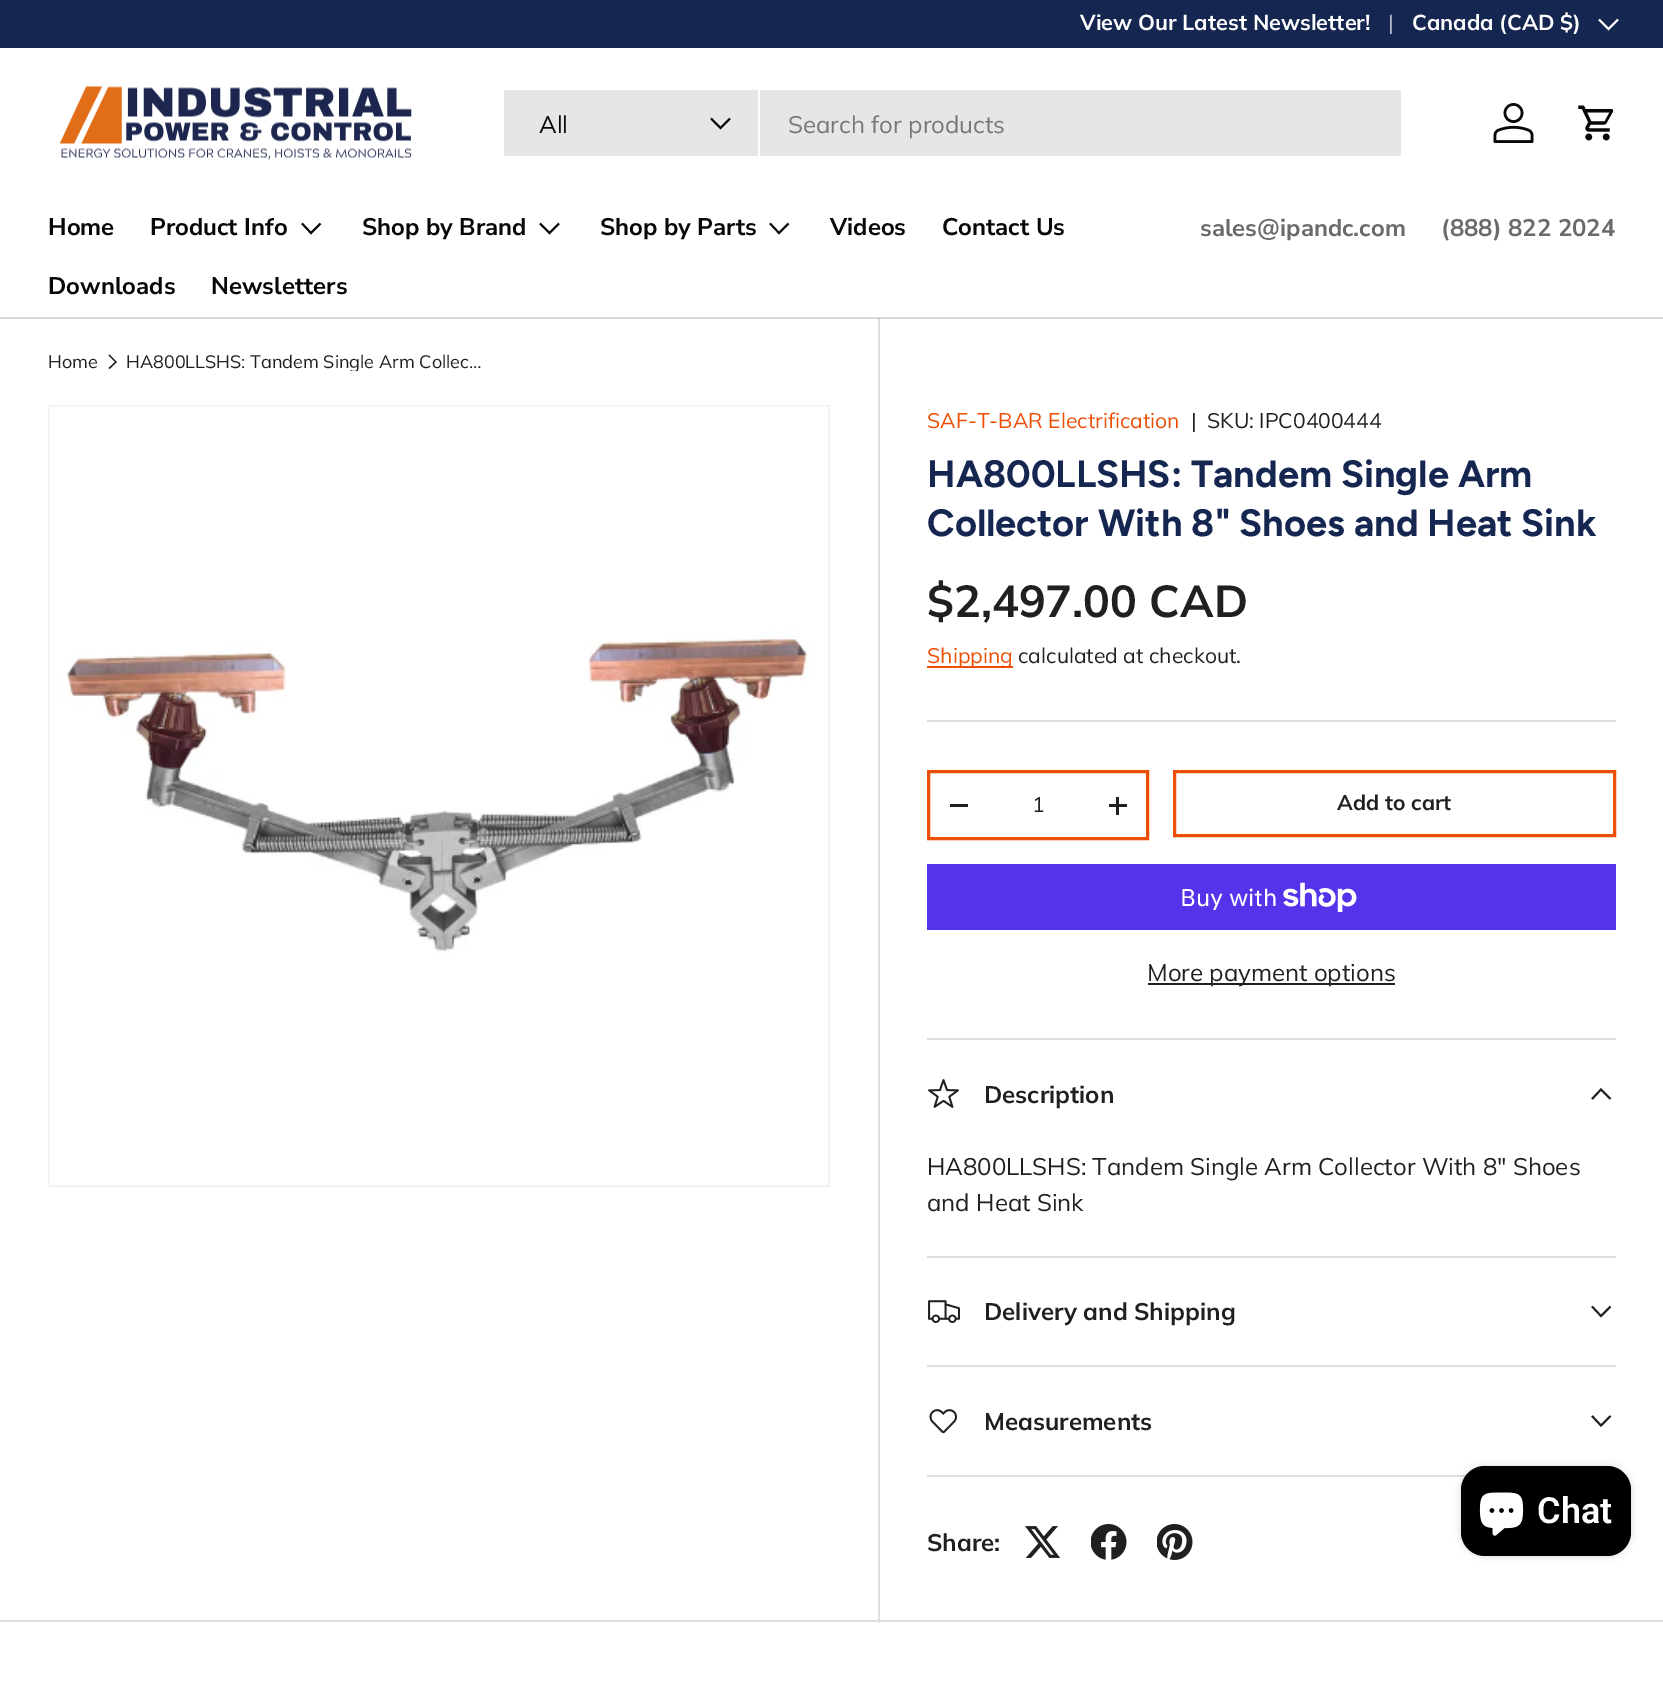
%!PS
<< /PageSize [1663 1682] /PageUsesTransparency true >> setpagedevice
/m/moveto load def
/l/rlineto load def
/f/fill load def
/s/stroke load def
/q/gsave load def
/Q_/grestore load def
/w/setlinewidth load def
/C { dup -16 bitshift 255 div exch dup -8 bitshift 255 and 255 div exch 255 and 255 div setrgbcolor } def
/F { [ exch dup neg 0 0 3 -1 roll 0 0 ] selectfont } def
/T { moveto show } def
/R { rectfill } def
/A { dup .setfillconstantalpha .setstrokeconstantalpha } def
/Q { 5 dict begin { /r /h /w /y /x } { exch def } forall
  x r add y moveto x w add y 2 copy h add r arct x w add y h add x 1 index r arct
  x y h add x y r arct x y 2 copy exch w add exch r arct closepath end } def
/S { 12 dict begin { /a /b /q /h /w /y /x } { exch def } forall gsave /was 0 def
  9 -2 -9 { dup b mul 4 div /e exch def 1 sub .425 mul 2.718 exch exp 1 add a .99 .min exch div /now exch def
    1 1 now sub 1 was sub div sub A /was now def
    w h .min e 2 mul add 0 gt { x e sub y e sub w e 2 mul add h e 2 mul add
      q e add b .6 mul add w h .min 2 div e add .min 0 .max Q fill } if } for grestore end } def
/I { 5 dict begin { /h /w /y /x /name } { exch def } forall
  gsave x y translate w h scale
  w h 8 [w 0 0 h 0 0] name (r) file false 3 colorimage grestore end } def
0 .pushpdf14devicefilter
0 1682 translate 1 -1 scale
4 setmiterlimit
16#FFFFFF C
0 0 1663 1682 R
16#DADADA C
0 317 1663 2 R
16#152751 C
0 0 1663 48 R
/Muli-Bold 21.6 F
16#FFFFFF C
(View Our Latest Newsletter!) 1080 30 T
/Muli-Regular 21.6 F
16#B9BECB C
(|) 1388 30 T
/Muli-Bold 21.6 F
16#FFFFFF C
(Canada \(CAD $\)) 1412 30 T
1.9 w
1618 19.5 m -9.5 9.5 l -9.5 -9.5 l s
(1.rgb) 59 86 353 74 I
16#E6E6E6 C
504 90 897 66 R
16#FFFFFF C
758 90 2 66 R
/Muli-Regular 24 F
16#070707 C
(All) 539 133 T
730 118.5 m -9.5 9.5 l -9.5 -9.5 l s
16#777777 C
(Search for products) 788 133 T
(2.rgb) 1493 103 41 40 I
(3.rgb) 1578 105 36 36 I
/NunitoSans-Bold 24 F
16#070707 C
(Home) 48 235 T
(Product Info) 150 235 T
320.5 223.5 m -9.5 9.5 l -9 -9.5 l s
(Shop by Brand) 362 235 T
559 223.5 m -9.5 9.5 l -9.5 -9.5 l s
(Shop by Parts) 600 235 T
788.5 223.5 m -9.5 9.5 l -9 -9.5 l s
(Videos) 830 235 T
(Contact Us) 942 235 T
(Downloads) 48 294 T
(Newsletters) 211 294 T
16#6A6A6A C
(sales@ipandc.com) 1200 236 T
(\(888\) 822 2024) 1441 236 T
/Muli-Regular 18 F
16#202020 C
(Home) 48 368 T
1.3 w
109 355 m 7 7 l -7 6.5 l s
q
126 353 360 18 rectclip
(HA800LLSHS: Tandem Single Arm Collec…) 126 368 T
Q_
16#F2F2F2 C
2 w
49 406 780 780 rectstroke
(4.rgb) 49 406 779 779 I
16#DEDEDE C
0 1620 1663 2 R
878 318 2 1305 R
16#BEBEBE C
878 318 2 1 R
/Muli-Regular 21.1 F
16#EC4E06 C
(SAF-T-BAR Electrification) 927 428 T
16#202020 C
(|) 1191 428 T
(SKU: IPC0400444) 1207 428 T
/Figtree-Bold 38 F
16#152751 C
(HA800LLSHS: Tandem Single Arm) 927 487 T
(Collector With 8" Shoes and Heat Sink) 927 536 T
/Muli-Bold 44.75 F
16#202020 C
($2,497.00 CAD) 927 617 T
16#EC4E06 C
927 666 86 2 R
/Muli-Regular 21.1 F
(Shipping) 927 663 T
16#202020 C
(calculated at checkout.) 1018 663 T
16#DEDEDE C
927 720 689 2 R
16#EC4E06 C
3 w
928.5 771.5 219 67 rectstroke
16#202020 C
950 804 18 3 R
(1) 1032 812 T
1109 804 18 3 R
1116 797 3 18 R
16#EC4E06 C
1174.5 771.5 440 64 rectstroke
/Muli-Bold 21.1 F
16#202020 C
(Add to cart) 1337 810 T
16#5433EB C
927 864 689 66 R
/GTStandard-Regular 24 F
16#FFFFFF C
(Buy with) 1180 906 T
(5.rgb) 1283 882 74 30 I
16#202020 C
1148 983 247 2 R
/Muli-Regular 24 F
(More payment options) 1147 981 T
16#DEDEDE C
927 1038 689 2 R
927 1256 689 2 R
(6.rgb) 928 1079 31 29 I
/Muli-Bold 24 F
16#202020 C
(Description) 984 1103 T
1.9 w
1610.5 1099 m -9.5 -9.5 l -9 9.5 l s
/Muli-Regular 24 F
(HA800LLSHS: Tandem Single Arm Collector With 8" Shoes) 927 1175 T
(and Heat Sink) 927 1211 T
16#DEDEDE C
927 1365 689 2 R
(7.rgb) 928 1300 32 23 I
/Muli-Bold 24 F
16#202020 C
(Delivery and Shipping) 984 1320 T
1610.5 1306.5 m -9.5 9.5 l -9 -9.5 l s
16#DEDEDE C
927 1475 540 2 R
(8.rgb) 929 1409 29 25 I
16#202020 C
(Measurements) 984 1430 T
1610.5 1416 m -9.5 9.5 l -9 -9.5 l s
(Share:) 927 1551 T
(9.rgb) 1025 1526 36 32 I
(10.rgb) 1091 1524 36 36 I
(11.rgb) 1157 1524 36 36 I
16#000000 C
1461 1466 170 90 24 4 .15 S
1461 1466 170 90 24 Q f
(12.rgb) 1479 1492 45 44 I
/Roboto-SemiBold 36 F
16#FFFFFF C
(Chat) 1537 1523 T
.poppdf14devicefilter showpage
